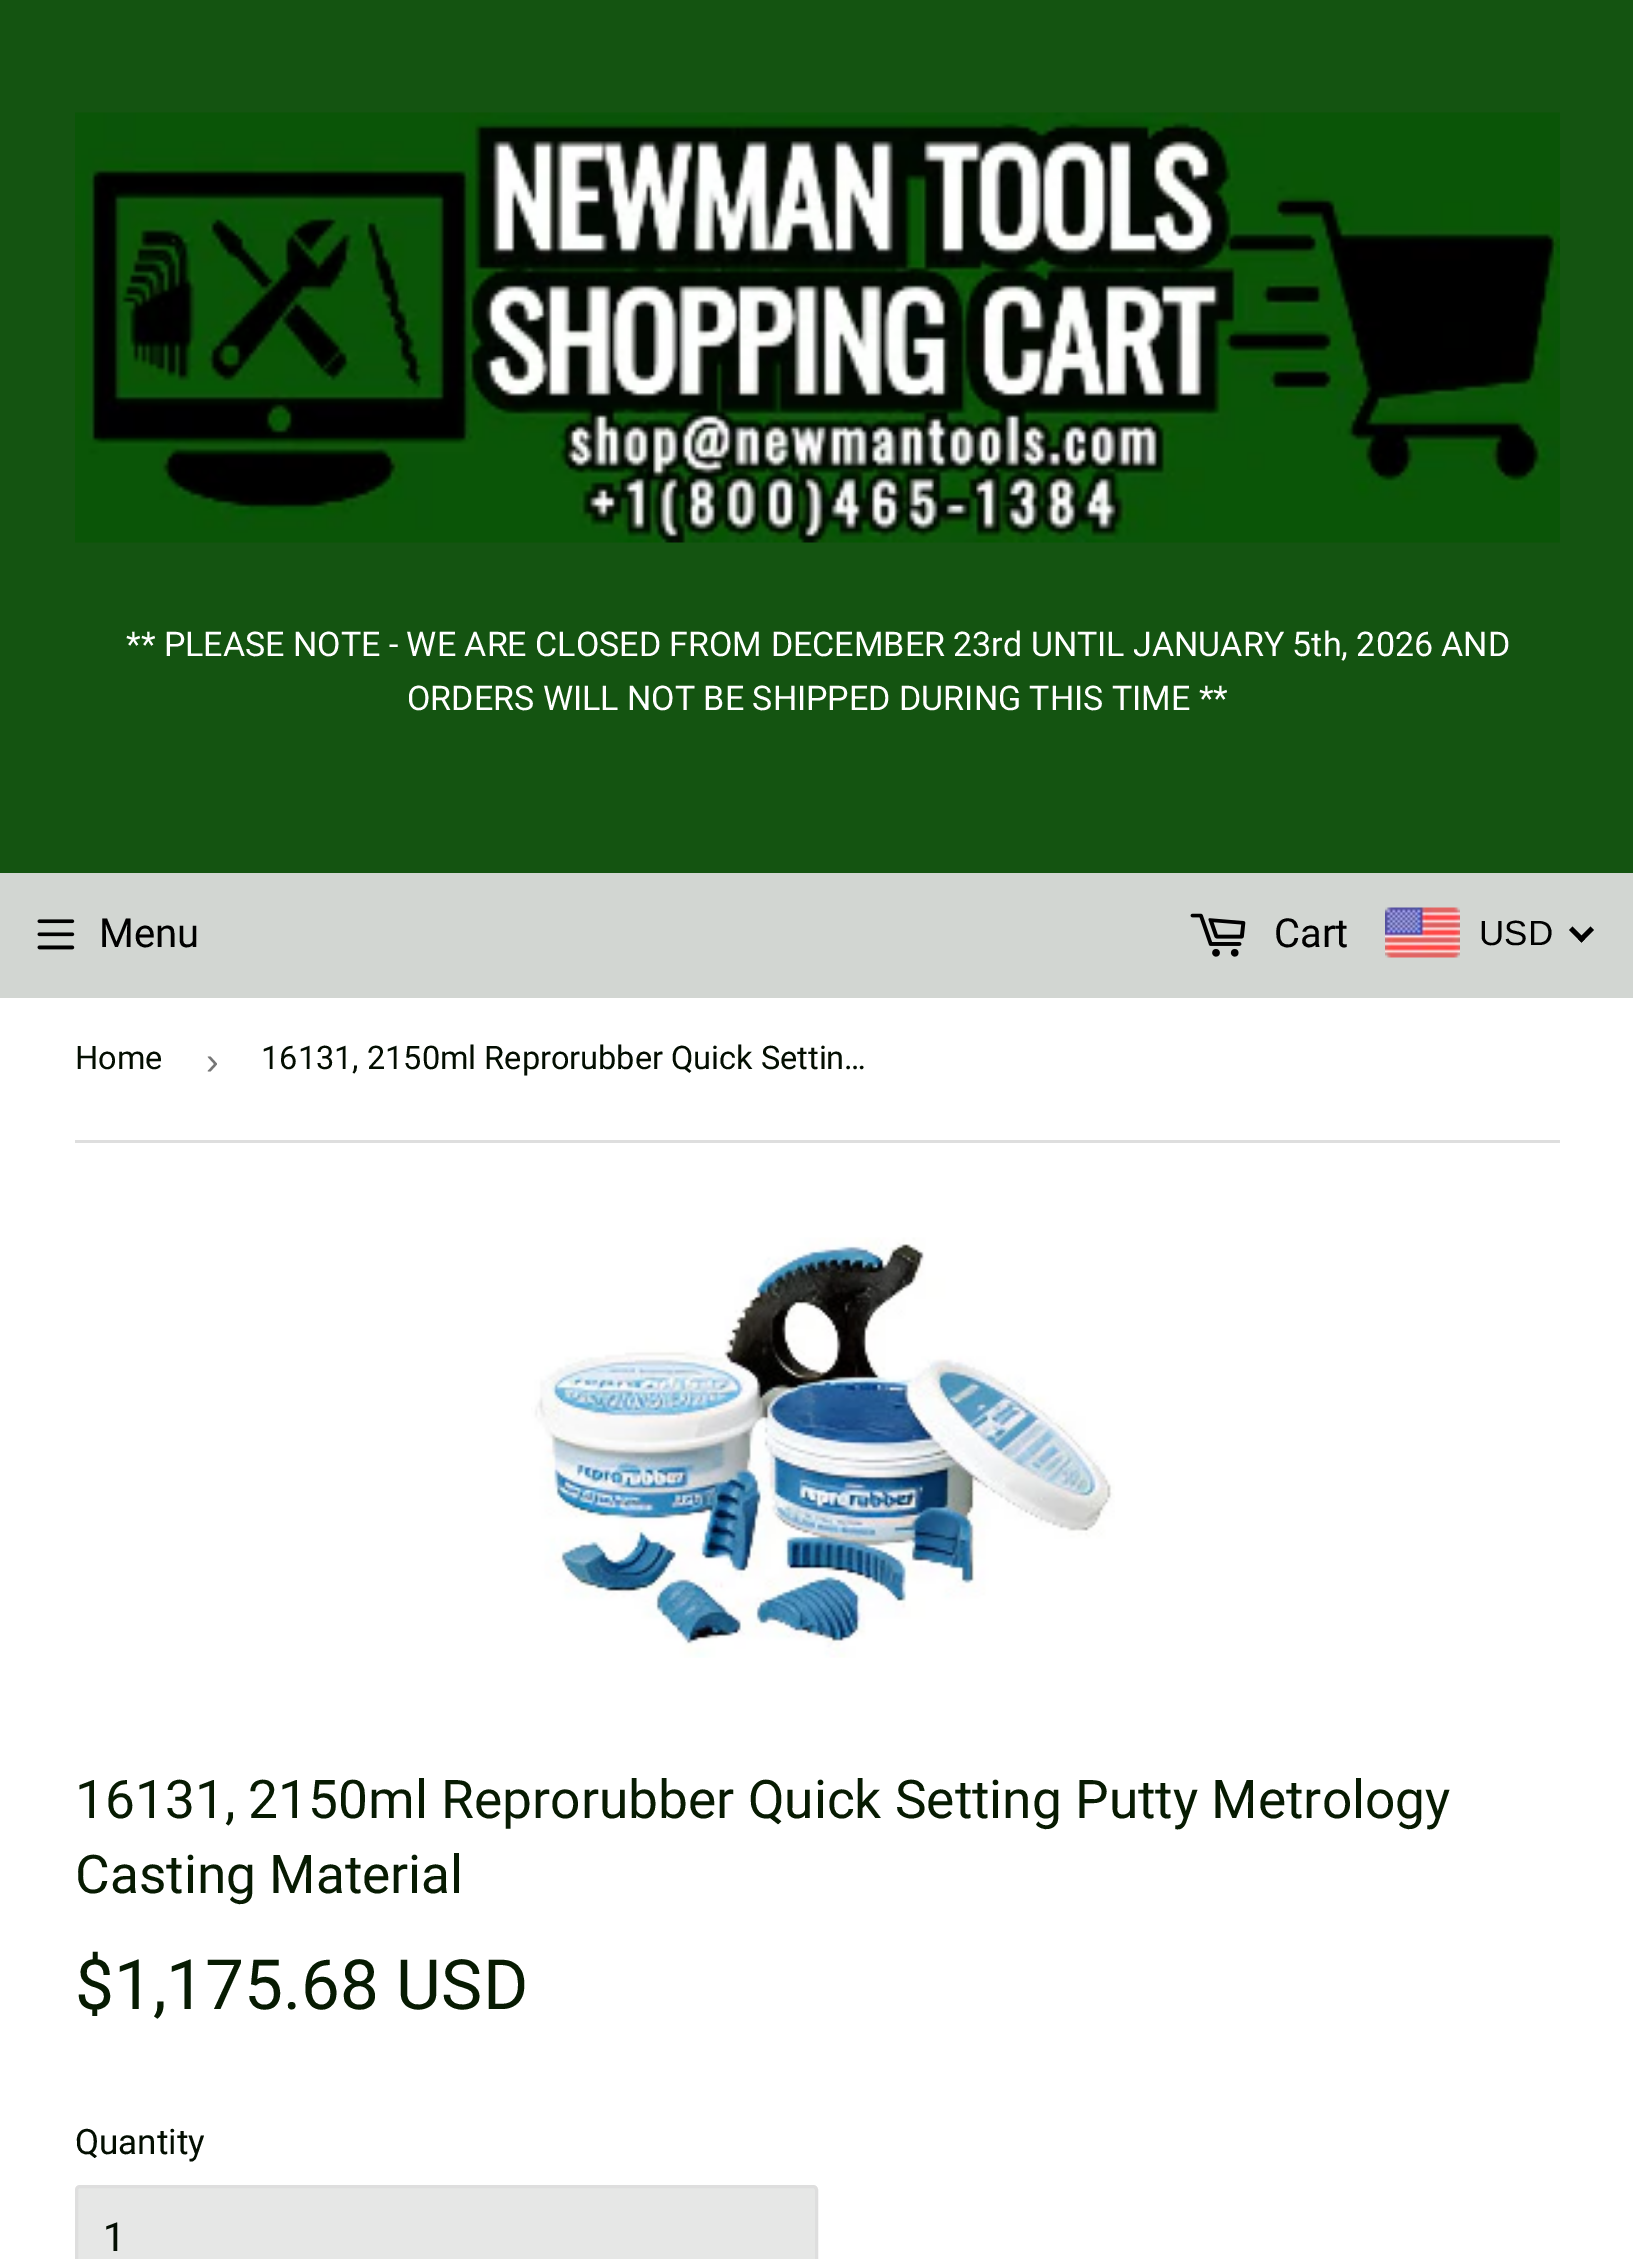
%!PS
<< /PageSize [1633 2259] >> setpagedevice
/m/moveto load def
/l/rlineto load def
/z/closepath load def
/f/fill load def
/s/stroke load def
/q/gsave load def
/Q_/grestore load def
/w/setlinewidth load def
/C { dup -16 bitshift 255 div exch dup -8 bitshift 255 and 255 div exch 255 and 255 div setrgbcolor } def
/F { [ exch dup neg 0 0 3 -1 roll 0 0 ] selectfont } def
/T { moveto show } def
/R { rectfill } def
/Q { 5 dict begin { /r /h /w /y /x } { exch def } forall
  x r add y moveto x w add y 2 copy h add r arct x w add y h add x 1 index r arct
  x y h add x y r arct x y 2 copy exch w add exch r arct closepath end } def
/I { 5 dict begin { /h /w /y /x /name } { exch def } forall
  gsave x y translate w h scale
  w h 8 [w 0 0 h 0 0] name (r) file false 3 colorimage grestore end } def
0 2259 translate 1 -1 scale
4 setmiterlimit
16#FFFFFF C
0 0 1633 2259 R
16#145411 C
0 0 1633 873 R
(1.rgb) 75 112 1485 431 I
/Roboto-Regular 34 F
16#FFFFFF C
(** PLEASE NOTE - WE ARE CLOSED FROM DECEMBER 23rd UNTIL JANUARY 5th, 2026 AND) 126 656 T
(ORDERS WILL NOT BE SHIPPED DURING THIS TIME **) 407 710 T
16#D2D6D2 C
0 873 1633 125 R
(2.rgb) 37 919 38 31 I
/Roboto-Regular 40 F
16#000000 C
(Menu) 99 947 T
(3.rgb) 1190 913 56 44 I
(Cart) 1274 947 T
(4.rgb) 1385 907 75 51 I
/LiberationSans-Regular 35 F
(USD) 1479 945 T
1590.5 926.5 m 3.5 3.5 l -12.5 12.5 l -3.5 -3.5 l z f
1572.5 926.5 m 12.5 12.5 l -3.5 3.5 l -12.5 -12.5 l z f
16#DEDEDE C
75 1140 1485 3 R
/Roboto-Regular 32.5 F
16#030E01 C
(Home) 75 1069 T
/LiberationSans-Regular 38 F
16#767676 C
(›) 206 1074 T
/Roboto-Regular 32.5 F
16#030E01 C
(16131, 2150ml Reprorubber Quick Settin…) 261 1069 T
(5.rgb) 531 1237 584 421 I
/Roboto-Regular 53.3 F
16#071B02 C
(16131, 2150ml Reprorubber Quick Setting Putty Metrology) 75 1818 T
(Casting Material) 75 1893 T
/Roboto-Regular 69.25 F
($1,175.68 USD) 75 2009 T
/Roboto-Regular 35 F
16#030E01 C
(Quantity) 75 2154 T
16#E6E7E6 C
76.5 2186.5 740 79 3.5 Q q f Q_
16#DEDEDE C
3 w
s
/Roboto-Regular 40 F
16#030E01 C
(1) 103 2251 T
showpage
